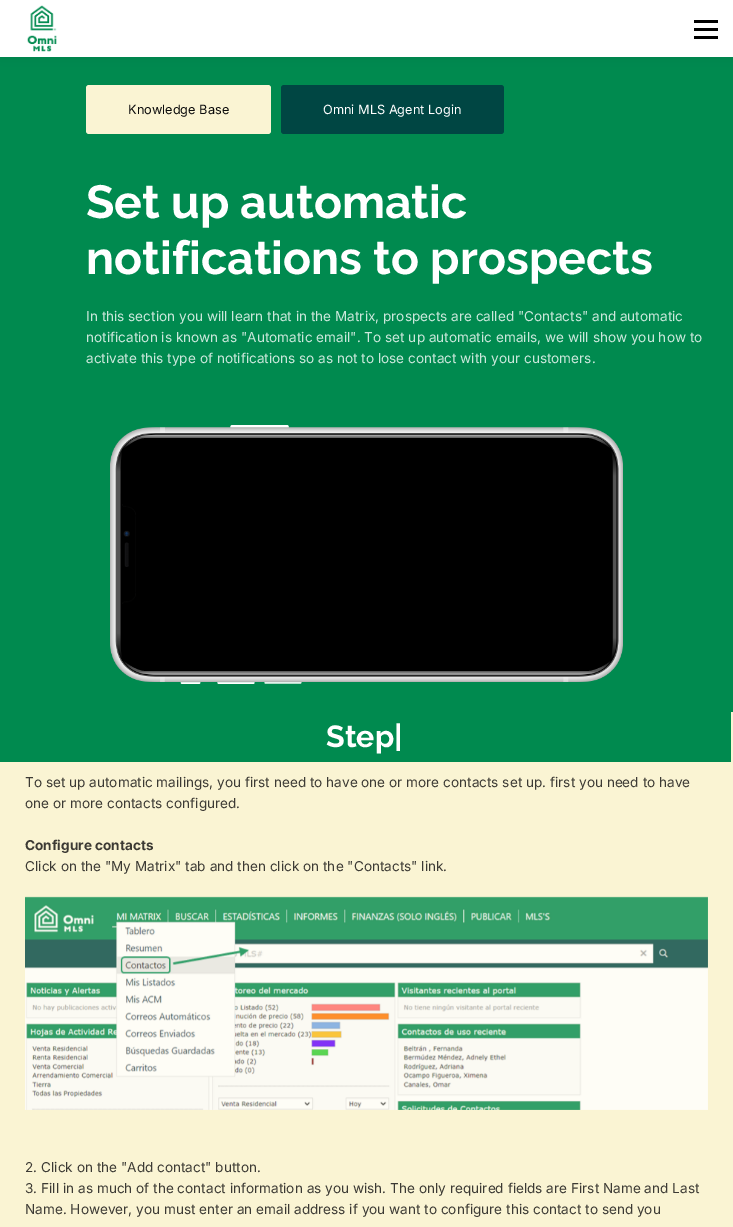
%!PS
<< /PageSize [733 1227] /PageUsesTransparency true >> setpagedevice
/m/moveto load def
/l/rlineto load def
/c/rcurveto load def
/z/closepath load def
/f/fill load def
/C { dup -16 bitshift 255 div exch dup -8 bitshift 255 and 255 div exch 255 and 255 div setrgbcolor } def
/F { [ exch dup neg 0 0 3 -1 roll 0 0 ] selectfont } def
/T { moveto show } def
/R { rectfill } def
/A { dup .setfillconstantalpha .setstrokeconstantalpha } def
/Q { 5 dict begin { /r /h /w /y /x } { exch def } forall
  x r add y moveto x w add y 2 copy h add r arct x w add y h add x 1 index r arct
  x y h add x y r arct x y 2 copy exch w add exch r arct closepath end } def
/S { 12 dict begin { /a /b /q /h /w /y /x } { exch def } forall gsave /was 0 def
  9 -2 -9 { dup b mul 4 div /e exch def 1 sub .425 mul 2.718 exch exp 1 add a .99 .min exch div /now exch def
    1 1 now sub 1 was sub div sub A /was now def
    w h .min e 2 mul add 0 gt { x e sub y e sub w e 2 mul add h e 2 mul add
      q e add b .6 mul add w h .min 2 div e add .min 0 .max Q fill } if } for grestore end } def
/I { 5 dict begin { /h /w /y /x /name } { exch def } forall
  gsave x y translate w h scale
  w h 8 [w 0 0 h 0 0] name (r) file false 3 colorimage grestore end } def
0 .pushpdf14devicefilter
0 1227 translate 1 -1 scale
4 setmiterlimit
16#FAF4D3 C
0 0 733 1227 R
16#008A4F C
0 57 733 655 R
16#000000 C
0 0 733 57 0 7.5 .05 S
16#FFFFFF C
0 0 733 57 R
(1.rgb) 27 5 30 47 I
16#000000 C
694 36 24 3 R
694 20 24 3 R
694 28 24 3 R
16#FAF4D3 C
86 85 185 49 3 Q f
/Inter-Regular 12.75 F
16#0C0C0C C
(Knowledge Base) 128 114 T
16#004643 C
281 85 223 49 3 Q f
16#FFFFFF C
(Omni MLS Agent Login) 323 114 T
/Raleway-Bold 46.4 F
(Set up automatic) 86 218 T
(notifications to prospects) 86 274 T
/Inter-Regular 13.6 F
16#CCE8DC C
(In this section you will learn that in the Matrix, prospects are called "Contacts" and automatic) 86 321 T
(notification is known as "Automatic email". To set up automatic emails, we will show you how to) 86 342 T
(activate this type of notifications so as not to lose contact with your customers.) 86 363 T
(2.rgb) 110 425 513 259 I
16#000000 C
147 438 m -13 0 -24 10 -24 23 c 0 187 l 0 13 11 23 24 23 c 439 0 l 13 0 24 -10 24 -23 c 0 -187 l 0 -13 -11 -23 -24 -23 c z f
(3.rgb) 122 504 14 100 I
16#008A4F C
0 712 731 50 R
/Raleway-Bold 30.5 F
16#FFFFFF C
(Step|) 326 747 T
/Inter-Regular 13.6 F
16#3C3A34 C
(To set up automatic mailings, you first need to have one or more contacts set up. first you need to have) 25 787 T
(one or more contacts configured.) 25 808 T
/Inter-Bold 13.6 F
(Configure contacts) 25 850 T
/Inter-Regular 13.6 F
(Click on the "My Matrix" tab and then click on the "Contacts" link.) 25 871 T
(4.rgb) 25 896 683 214 I
(2. Click on the "Add contact" button.) 25 1172 T
(3. Fill in as much of the contact information as you wish. The only required fields are First Name and Last) 25 1193 T
(Name. However, you must enter an email address if you want to configure this contact to send you) 25 1214 T
.poppdf14devicefilter showpage
